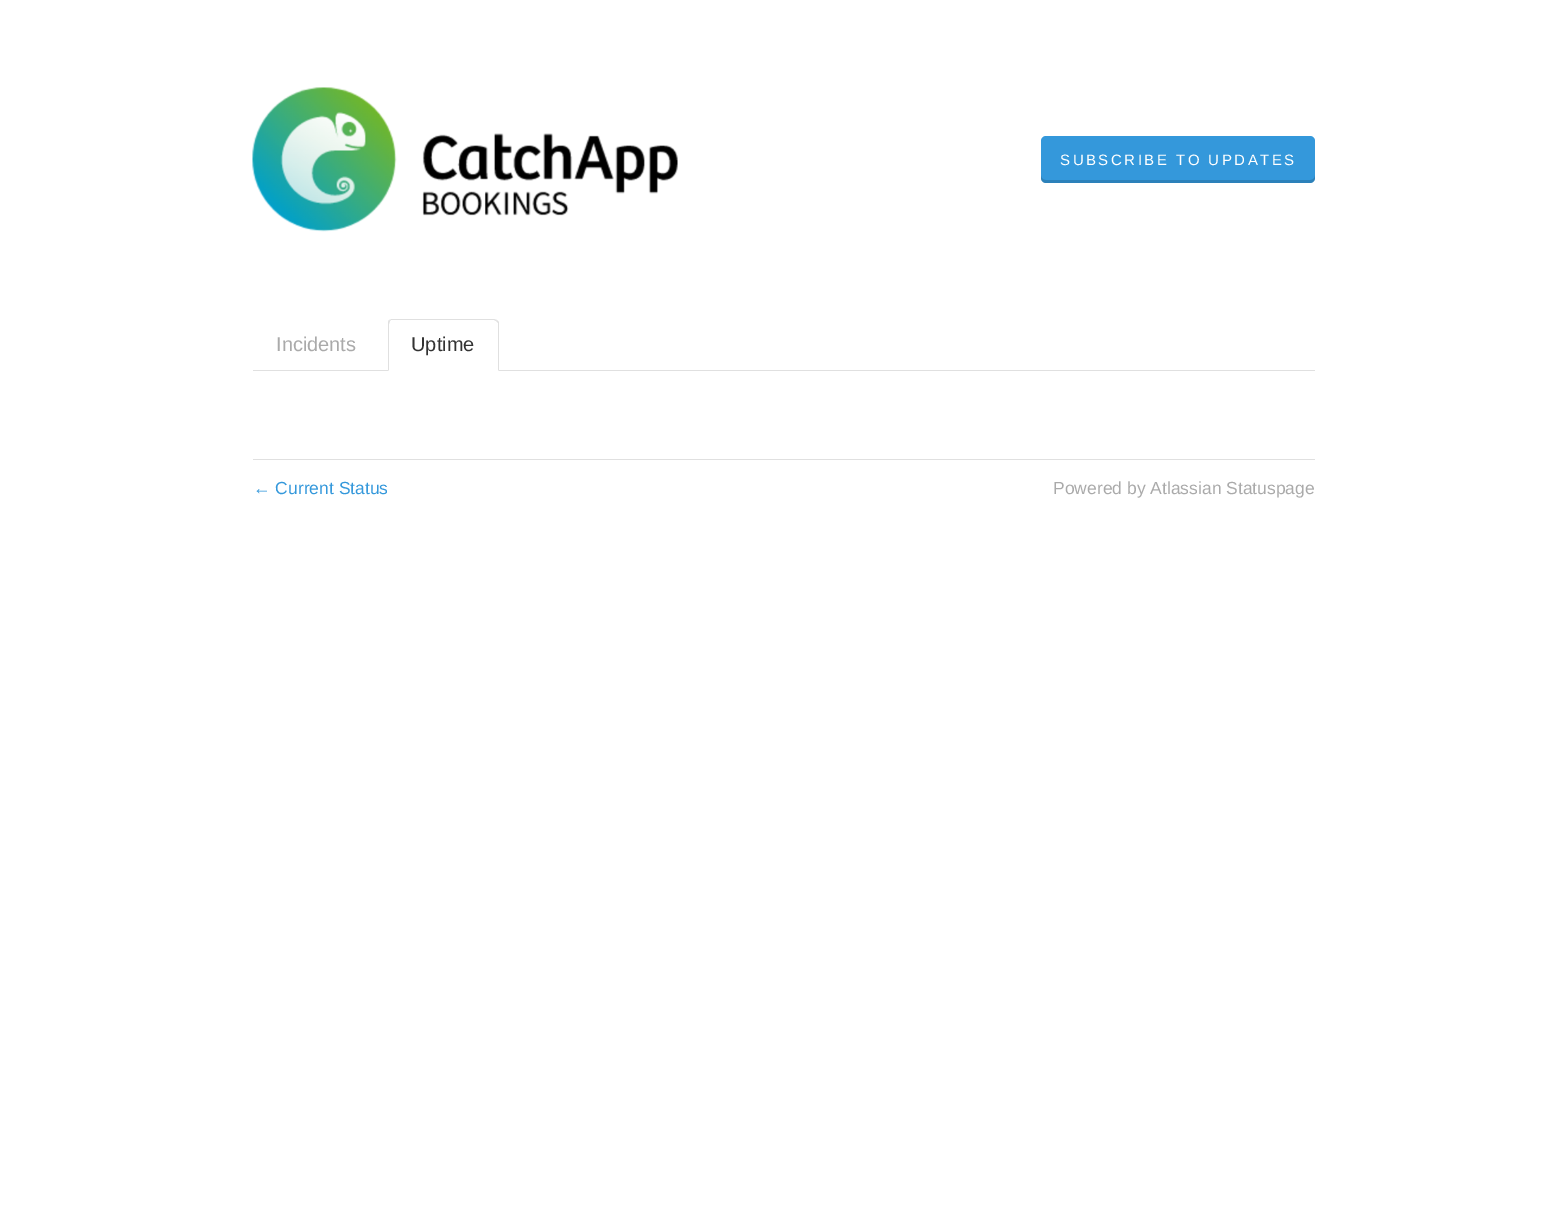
%!PS
<< /PageSize [1567 1211] /PageUsesTransparency true >> setpagedevice
/m/moveto load def
/l/rlineto load def
/c/rcurveto load def
/z/closepath load def
/f/fill load def
/C { dup -16 bitshift 255 div exch dup -8 bitshift 255 and 255 div exch 255 and 255 div setrgbcolor } def
/F { [ exch dup neg 0 0 3 -1 roll 0 0 ] selectfont } def
/T { moveto show } def
/R { rectfill } def
/A { dup .setfillconstantalpha .setstrokeconstantalpha } def
/Q { 5 dict begin { /r /h /w /y /x } { exch def } forall
  x r add y moveto x w add y 2 copy h add r arct x w add y h add x 1 index r arct
  x y h add x y r arct x y 2 copy exch w add exch r arct closepath end } def
/I { 5 dict begin { /h /w /y /x /name } { exch def } forall
  gsave x y translate w h scale
  w h 8 [w 0 0 h 0 0] name (r) file false 3 colorimage grestore end } def
0 .pushpdf14devicefilter
0 1211 translate 1 -1 scale
4 setmiterlimit
16#FFFFFF C
0 0 1567 1211 R
(1.rgb) 252 87 426 145 I
16#3498DB C
1041 136 274 47 5 Q f
0.15 A
16#000000 C
1041 175 m 0 3 l 0 3 2 5 5 5 c 264 0 l 3 0 5 -2 5 -5 c 0 -3 l 0 3 -2 5 -5 5 c -264 0 l -3 0 -5 -2 -5 -5 c z f
/LiberationSans-Regular 15 F
1 A
16#FFFFFF C
1060 165 m 2.5 0 (SUBSCRIBE TO UPDATES) ashow
16#E0E0E0 C
253 370 1062 1 R
/LiberationSans-Regular 20 F
16#AAAAAA C
(Incidents) 276 351 T
16#FFFFFF C
393 319 m 101 0 l 3 0 5 2 5 5 c 0 47 l -111 0 l 0 -47 l 0 -3 2 -5 5 -5 c z f
16#E0E0E0 C
392 319 m -1 0 -2 1 -3 1 c 1 1 l 1 -1 l 103 0 l 2 1 l 1 -1 l -3 -1 l z f
497 320 m 2 2 l 0 49 l -1 -1 l 0 -47 l -2 -2 l z f
389 320 m -1 1 -1 3 -1 4 c 0 47 l 1 -1 l 0 -46 l 1 -3 l z f
16#333333 C
(Uptime) 411 351 T
16#E0E0E0 C
253 459 1062 1 R
/LiberationSans-Regular 17.5 F
16#3498DB C
(← Current Status) 253 494 T
16#AAAAAA C
(Powered by Atlassian Statuspage) 1053 494 T
.poppdf14devicefilter showpage
